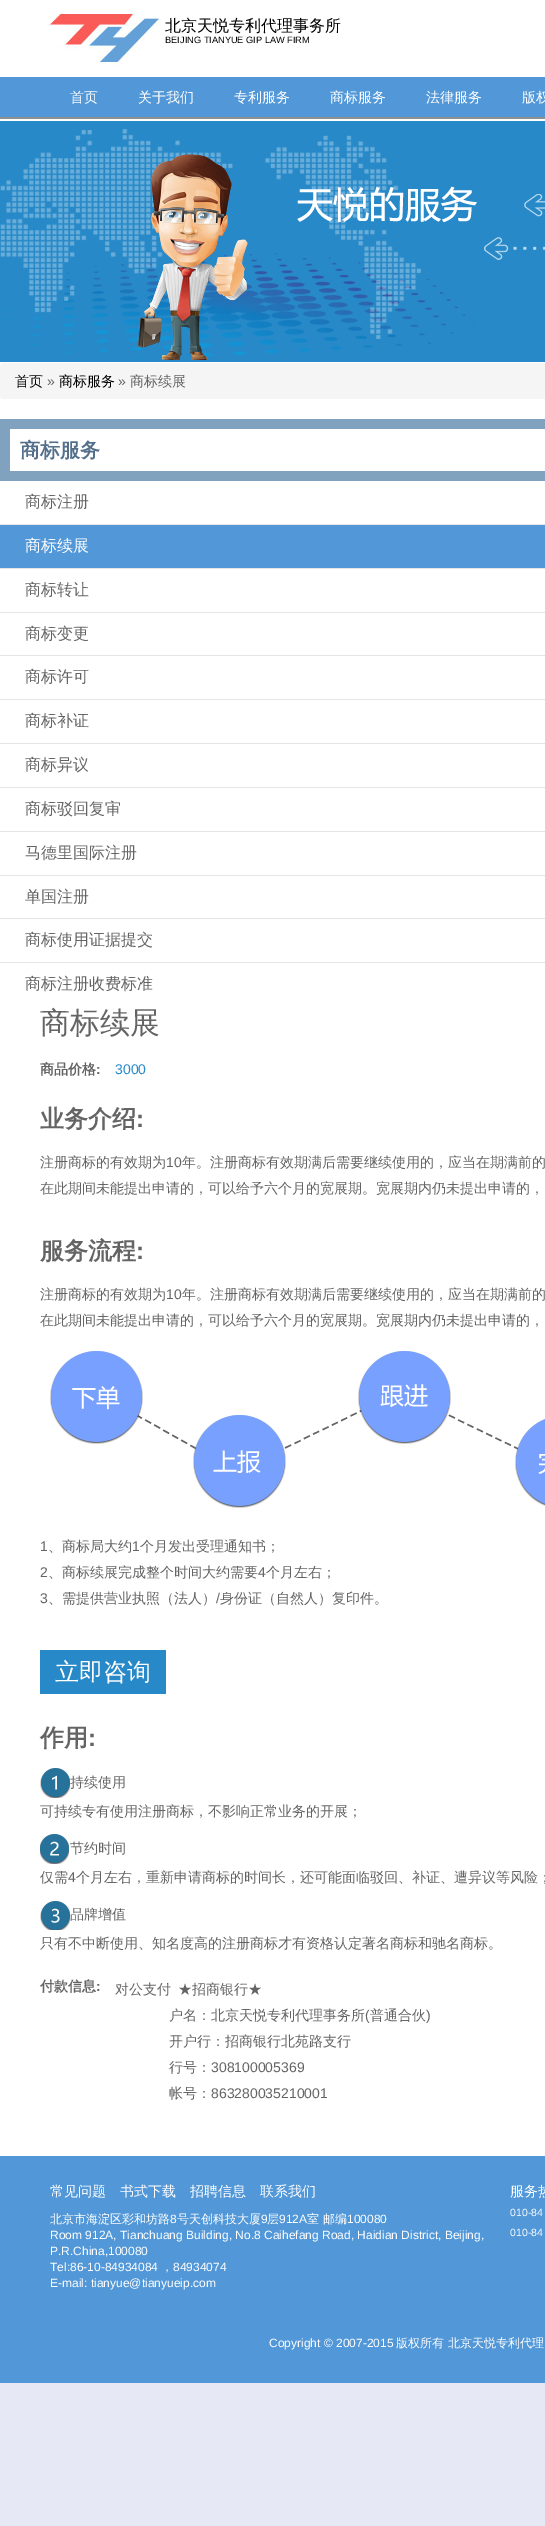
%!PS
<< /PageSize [545 2526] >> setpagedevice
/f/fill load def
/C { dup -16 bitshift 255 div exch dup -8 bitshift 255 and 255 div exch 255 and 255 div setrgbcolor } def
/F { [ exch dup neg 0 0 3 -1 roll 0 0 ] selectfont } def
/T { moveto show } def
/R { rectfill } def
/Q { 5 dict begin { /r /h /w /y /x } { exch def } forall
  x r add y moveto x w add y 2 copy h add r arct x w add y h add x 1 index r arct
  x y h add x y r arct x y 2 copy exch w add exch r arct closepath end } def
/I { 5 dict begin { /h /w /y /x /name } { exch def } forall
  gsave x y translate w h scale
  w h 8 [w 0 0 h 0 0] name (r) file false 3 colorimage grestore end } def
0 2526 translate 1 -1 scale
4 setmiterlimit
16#E6E8F5 C
0 0 545 2526 R
16#FFFFFF C
0 0 545 2156 R
(1.rgb) 50 10 110 55 I
/WenQuanYiZenHei-Medium 16 F
16#000000 C
(北京天悦专利代理事务所) 165 31 T
/LiberationSans-Regular 9.25 F
(BEIJING TIANYUE GIP LAW FIRM) 165 43 T
16#909090 C
0 117 545 2 R
16#5298D8 C
0 77 545 40 R
/WenQuanYiZenHei-Medium 14 F
16#FFFFFF C
(首页) 70 102 T
(关于我们) 138 102 T
(专利服务) 234 102 T
(商标服务) 330 102 T
(法律服务) 426 102 T
(版权) 522 102 T
(2.rgb) 0 121 545 241 I
16#F5F5F5 C
0 363 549 36 4 Q f
16#000000 C
(首页) 15 386 T
/LiberationSans-Regular 14 F
16#646464 C
(») 47 386 T
/WenQuanYiZenHei-Medium 14 F
16#000000 C
(商标服务) 59 386 T
/LiberationSans-Regular 14 F
16#646464 C
(») 118 386 T
/WenQuanYiZenHei-Medium 14 F
(商标续展) 130 386 T
16#81A2BF C
10 419 535 10 R
10 471 535 10 R
0 419 10 62 R
/WenQuanYiZenHei-Bold 20 F
16#536F89 C
(商标服务) 20 457 T
16#E5E5E5 C
0 524 545 1 R
/WenQuanYiZenHei-Medium 16 F
16#646464 C
(商标注册) 25 507 T
16#5298D8 C
0 525 545 43 R
16#E5E5E5 C
0 568 545 1 R
16#FFFFFF C
(商标续展) 25 551 T
16#E5E5E5 C
0 612 545 1 R
16#646464 C
(商标转让) 25 595 T
16#E5E5E5 C
0 655 545 1 R
16#646464 C
(商标变更) 25 639 T
16#E5E5E5 C
0 699 545 1 R
16#646464 C
(商标许可) 25 682 T
16#E5E5E5 C
0 743 545 1 R
16#646464 C
(商标补证) 25 726 T
16#E5E5E5 C
0 787 545 1 R
16#646464 C
(商标异议) 25 770 T
16#E5E5E5 C
0 831 545 1 R
16#646464 C
(商标驳回复审) 25 814 T
16#E5E5E5 C
0 875 545 1 R
16#646464 C
(马德里国际注册) 25 858 T
16#E5E5E5 C
0 918 545 1 R
16#646464 C
(单国注册) 25 902 T
16#E5E5E5 C
0 962 545 1 R
16#646464 C
(商标使用证据提交) 25 945 T
(商标注册收费标准) 25 989 T
/WenQuanYiZenHei-Medium 30 F
(商标续展) 40 1033 T
/WenQuanYiZenHei-Bold 14 F
(商品价格) 40 1074 T
/LiberationSans-Bold 14 F
(:) 96 1074 T
/LiberationSans-Regular 14 F
16#2789C8 C
(3000) 115 1074 T
/WenQuanYiZenHei-Bold 24 F
16#646464 C
(业务介绍) 40 1127 T
/LiberationSans-Bold 24 F
(:) 136 1127 T
/WenQuanYiZenHei-Medium 14 F
(注册商标的有效期为) 40 1167 T
/LiberationSans-Regular 14 F
(10) 166 1167 T
/WenQuanYiZenHei-Medium 14 F
(年。注册商标有效期满后需要继续使用的，应当在期满前的) 182 1167 T
(在此期间未能提出申请的，可以给予六个月的宽展期。宽展期内仍未提出申请的，) 40 1193 T
/WenQuanYiZenHei-Bold 24 F
(服务流程) 40 1259 T
/LiberationSans-Bold 24 F
(:) 136 1259 T
/WenQuanYiZenHei-Medium 14 F
(注册商标的有效期为) 40 1299 T
/LiberationSans-Regular 14 F
(10) 166 1299 T
/WenQuanYiZenHei-Medium 14 F
(年。注册商标有效期满后需要继续使用的，应当在期满前的) 182 1299 T
(在此期间未能提出申请的，可以给予六个月的宽展期。宽展期内仍未提出申请的，) 40 1325 T
(3.rgb) 50 1351 495 157 I
/LiberationSans-Regular 14 F
(1) 40 1551 T
/WenQuanYiZenHei-Medium 14 F
(、商标局大约) 48 1551 T
/LiberationSans-Regular 14 F
(1) 132 1551 T
/WenQuanYiZenHei-Medium 14 F
(个月发出受理通知书；) 140 1551 T
/LiberationSans-Regular 14 F
(2) 40 1577 T
/WenQuanYiZenHei-Medium 14 F
(、商标续展完成整个时间大约需要) 48 1577 T
/LiberationSans-Regular 14 F
(4) 258 1577 T
/WenQuanYiZenHei-Medium 14 F
(个月左右；) 266 1577 T
/LiberationSans-Regular 14 F
(3) 40 1603 T
/WenQuanYiZenHei-Medium 14 F
(、需提供营业执照（法人）) 48 1603 T
/LiberationSans-Regular 14 F
(/) 216 1603 T
/WenQuanYiZenHei-Medium 14 F
(身份证（自然人）复印件。) 220 1603 T
16#2789C8 C
40 1650 126 44 R
/WenQuanYiZenHei-Medium 24 F
16#FFFFFF C
(立即咨询) 55 1680 T
/WenQuanYiZenHei-Bold 24 F
16#646464 C
(作用) 40 1746 T
/LiberationSans-Bold 24 F
(:) 88 1746 T
(4.rgb) 40 1768 30 30 I
/WenQuanYiZenHei-Medium 14 F
(持续使用) 70 1787 T
(可持续专有使用注册商标，不影响正常业务的开展；) 40 1816 T
(5.rgb) 40 1834 29 30 I
(节约时间) 70 1853 T
(仅需) 40 1882 T
/LiberationSans-Regular 14 F
(4) 68 1882 T
/WenQuanYiZenHei-Medium 14 F
(个月左右，重新申请商标的时间长，还可能面临驳回、补证、遭异议等风险；) 76 1882 T
(6.rgb) 40 1901 30 29 I
(品牌增值) 70 1919 T
(只有不中断使用、知名度高的注册商标才有资格认定著名商标和驰名商标。) 40 1948 T
/WenQuanYiZenHei-Bold 14 F
(付款信息) 40 1991 T
/LiberationSans-Bold 14 F
(:) 96 1991 T
/WenQuanYiZenHei-Medium 14 F
(对公支付) 115 1994 T
(★招商银行★) 178 1994 T
(户名：北京天悦专利代理事务所) 169 2020 T
/LiberationSans-Regular 14 F
(\() 365 2020 T
/WenQuanYiZenHei-Medium 14 F
(普通合伙) 370 2020 T
/LiberationSans-Regular 14 F
(\)) 426 2020 T
/WenQuanYiZenHei-Medium 14 F
(开户行：招商银行北苑路支行) 169 2046 T
(行号：) 169 2072 T
/LiberationSans-Regular 14 F
(308100005369) 211 2072 T
/WenQuanYiZenHei-Medium 14 F
(帐号：) 169 2098 T
/LiberationSans-Regular 14 F
(863280035210001) 211 2098 T
16#5298D8 C
0 2156 545 227 R
/WenQuanYiZenHei-Medium 14 F
16#FFFFFF C
(常见问题) 50 2196 T
(书式下载) 120 2196 T
(招聘信息) 190 2196 T
(联系我们) 260 2196 T
/WenQuanYiZenHei-Medium 12 F
(北京市海淀区彩和坊路) 50 2223 T
/LiberationSans-Regular 12 F
(8) 170 2223 T
/WenQuanYiZenHei-Medium 12 F
(号天创科技大厦) 177 2223 T
/LiberationSans-Regular 12 F
(9) 261 2223 T
/WenQuanYiZenHei-Medium 12 F
(层) 267 2223 T
/LiberationSans-Regular 12 F
(912A) 279 2223 T
/WenQuanYiZenHei-Medium 12 F
(室 邮编) 307 2223 T
/LiberationSans-Regular 12 F
(100080) 347 2223 T
(Room 912A, Tianchuang Building, No.8 Caihefang Road, Haidian District, Beijing,) 50 2239 T
(P.R.China,100080) 50 2255 T
(Tel:86-10-84934084) 50 2271 T
/WenQuanYiZenHei-Medium 12 F
(，) 161 2271 T
/LiberationSans-Regular 12 F
(84934074) 173 2271 T
(E-mail: tianyue@tianyueip.com) 50 2287 T
/WenQuanYiZenHei-Medium 14 F
(服务热) 510 2196 T
/LiberationSans-Regular 10.5 F
(010-84) 510 2216 T
(010-84) 510 2236 T
/LiberationSans-Regular 12 F
(Copyright © 2007-2015) 269 2347 T
/WenQuanYiZenHei-Medium 12 F
(版权所有 北京天悦专利代理) 396 2347 T
showpage
